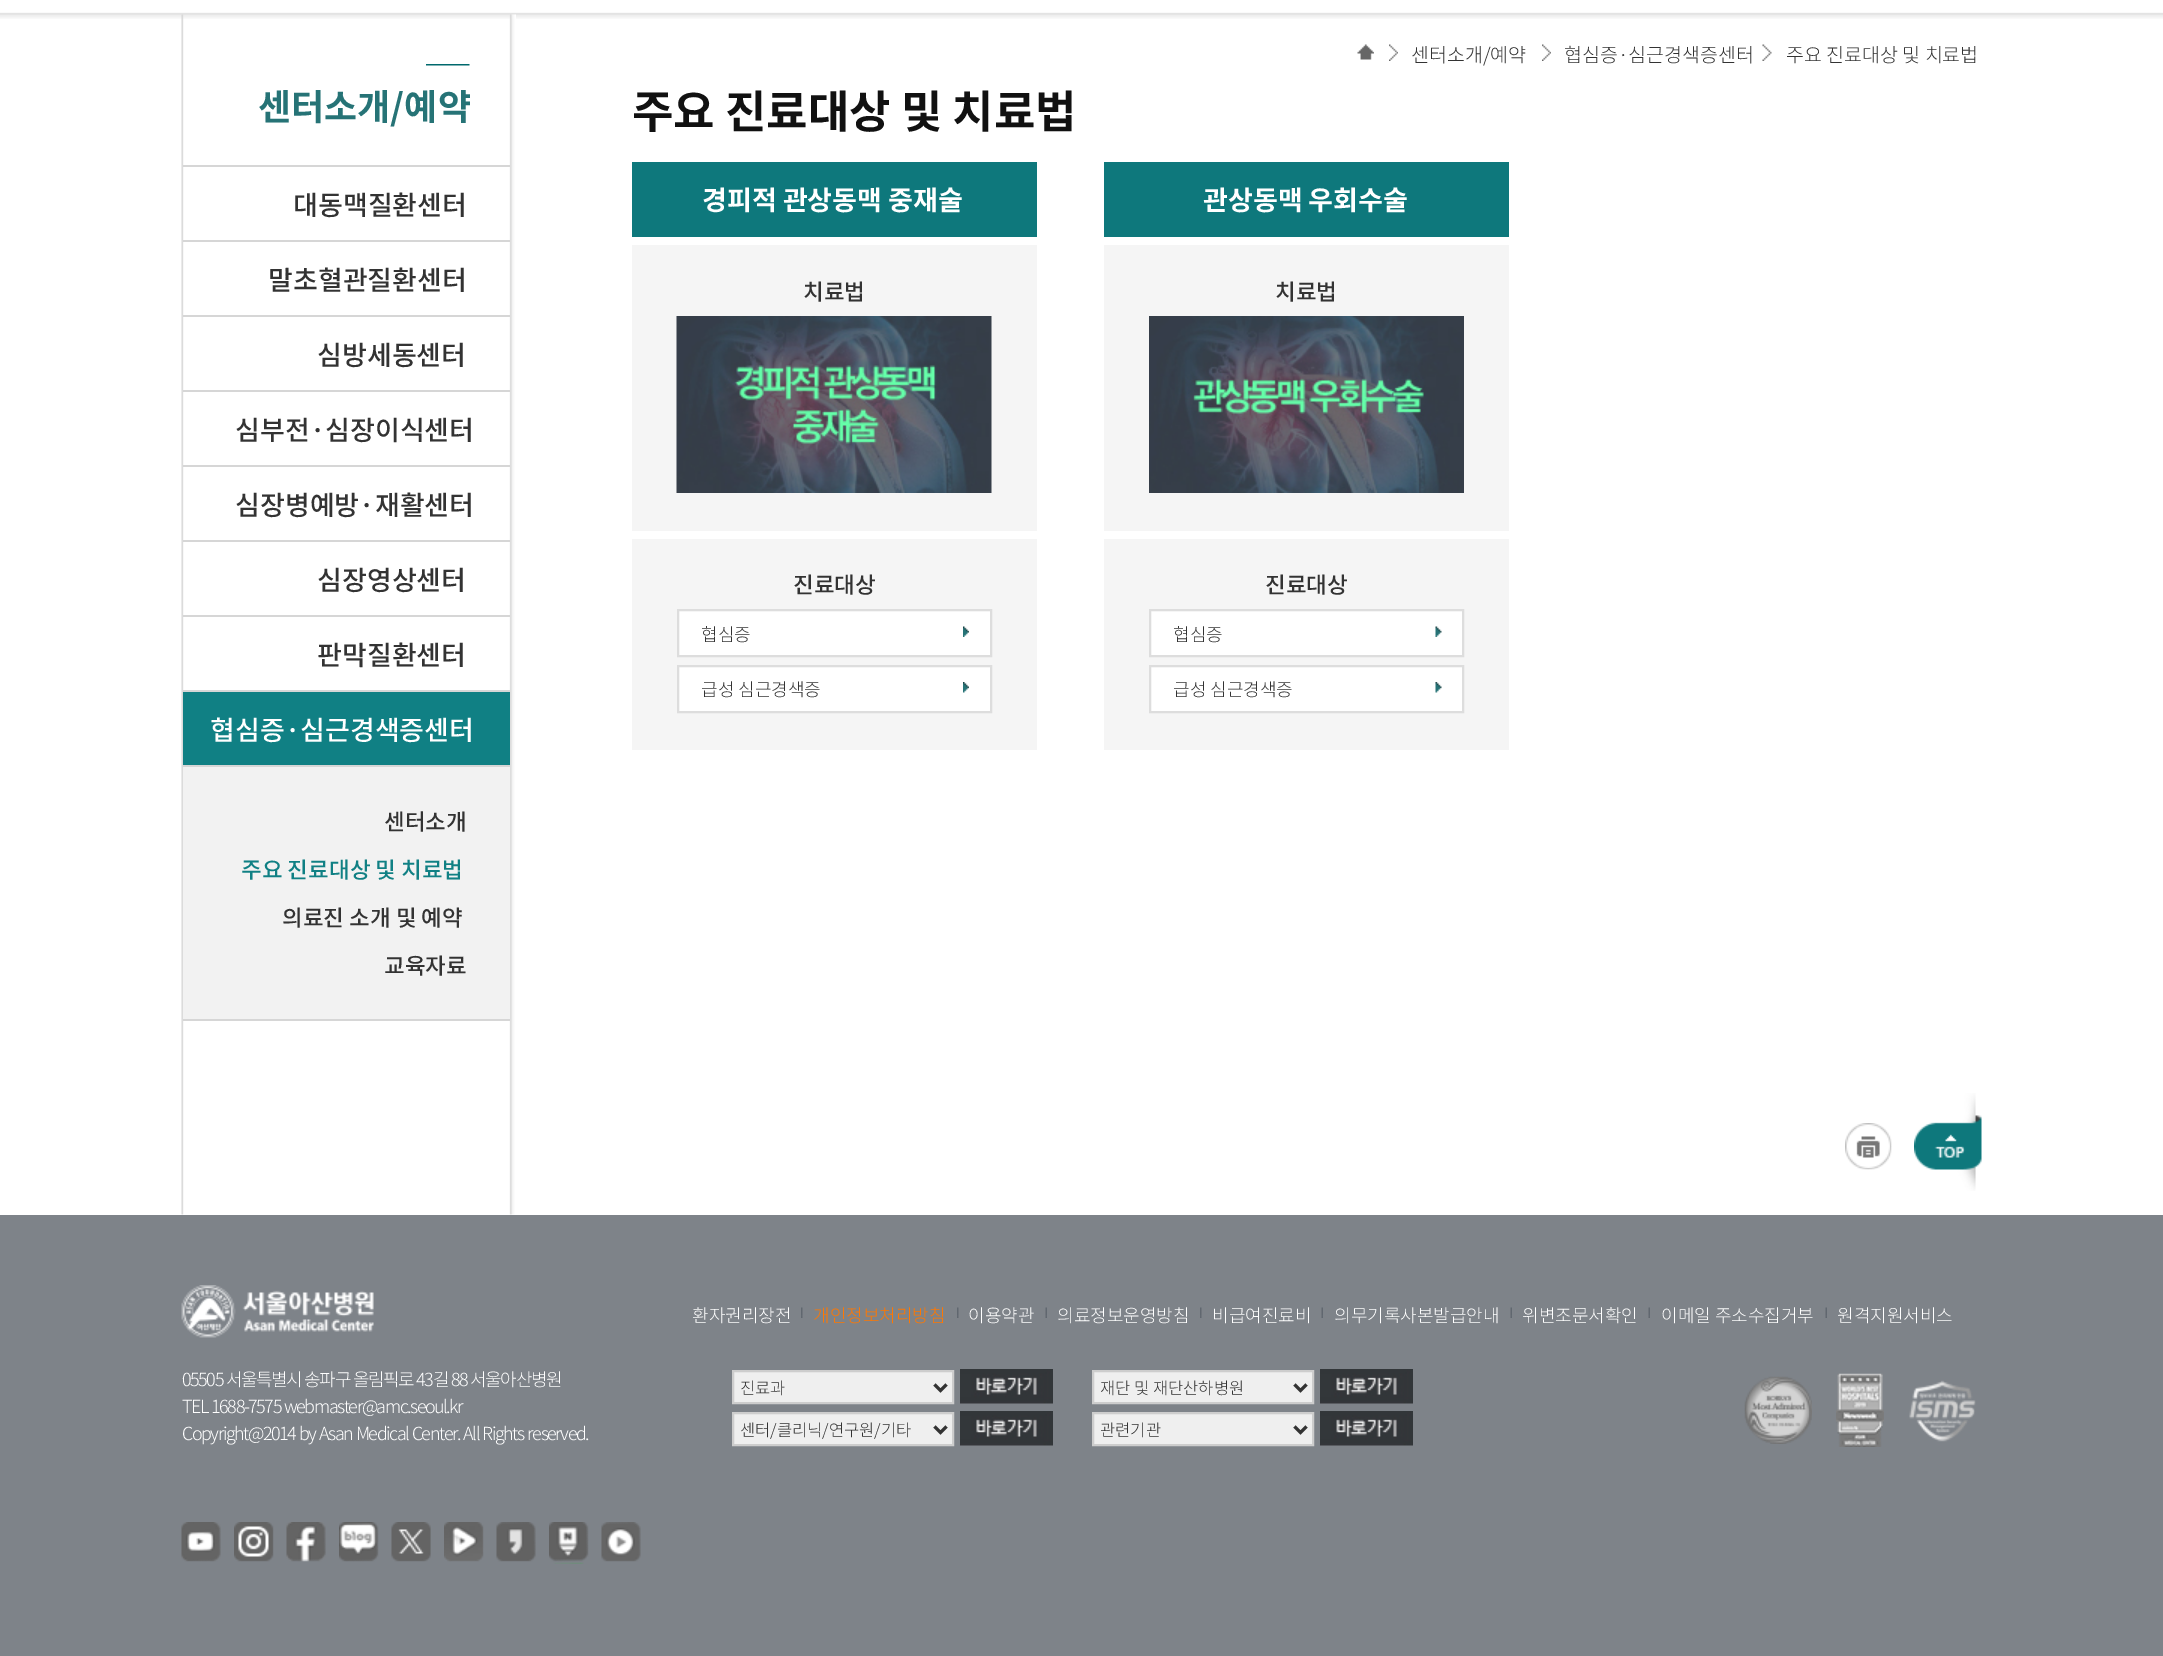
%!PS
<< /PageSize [2163 1656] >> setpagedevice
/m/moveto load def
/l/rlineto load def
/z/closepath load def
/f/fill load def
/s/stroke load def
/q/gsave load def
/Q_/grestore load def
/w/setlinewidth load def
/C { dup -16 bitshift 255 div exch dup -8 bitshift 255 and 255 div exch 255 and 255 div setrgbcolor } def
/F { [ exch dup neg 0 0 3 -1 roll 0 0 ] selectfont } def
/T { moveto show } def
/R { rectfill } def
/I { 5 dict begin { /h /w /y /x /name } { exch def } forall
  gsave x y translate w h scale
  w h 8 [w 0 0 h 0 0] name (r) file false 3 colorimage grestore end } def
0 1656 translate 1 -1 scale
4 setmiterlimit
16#7E8389 C
0 0 2163 1656 R
(1.rgb) 0 0 2163 14 I
16#DDDDDD C
0 14 2163 1 R
16#FFFFFF C
0 19 2163 1196 R
(2.rgb) 0 14 2163 5 I
(3.rgb) 181 14 335 1201 I
(4.rgb) 1357 44 17 16 I
(5.rgb) 1389 44 9 17 I
/NotoSansKR-Light 19.5 F
16#333333 C
(센터소개/예약) 1411 62 T
(5.rgb) 1542 44 9 17 I
(협심증·심근경색증센터) 1564 62 T
(6.rgb) 1762 44 10 17 I
(주요 진료대상 및 치료법) 1786 62 T
(7.rgb) 426 64 44 2 I
/NotoSansKR-Bold 36 F
16#267376 C
(센터소개/예약) 258 120 T
16#D6D6D6 C
183 165 327 2 R
183 240 327 2 R
/NotoSansKR-Medium 27 F
16#333333 C
(대동맥질환센터) 293 215 T
16#D6D6D6 C
183 315 327 2 R
16#333333 C
(말초혈관질환센터) 268 290 T
16#D6D6D6 C
183 390 327 2 R
16#333333 C
(심방세동센터) 317 365 T
16#D6D6D6 C
183 465 327 2 R
16#333333 C
(심부전·심장이식센터) 235 440 T
16#D6D6D6 C
183 540 327 2 R
16#333333 C
(심장병예방·재활센터) 235 515 T
16#D6D6D6 C
183 615 327 2 R
16#333333 C
(심장영상센터) 317 590 T
16#D6D6D6 C
183 690 327 2 R
16#333333 C
(판막질환센터) 317 665 T
16#D6D6D6 C
183 1019 327 2 R
16#108084 C
183 692 327 73 R
16#FFFFFF C
(협심증·심근경색증센터) 210 740 T
16#F2F2F2 C
183 767 327 252 R
16#D6D6D6 C
183 765 327 2 R
/NotoSansKR-Medium 22.5 F
16#333333 C
(센터소개) 384 830 T
16#108084 C
(주요 진료대상 및 치료법) 241 878 T
16#333333 C
(의료진 소개 및 예약) 282 926 T
(교육자료) 384 974 T
/NotoSansKR-Bold 45 F
16#111111 C
(주요 진료대상 및 치료법) 632 128 T
16#0E787C C
632 162 405 75 R
/NotoSansKR-Bold 27 F
16#FFFFFF C
(경피적 관상동맥 중재술) 702 210 T
16#F5F5F5 C
632 245 405 286 R
/NotoSansKR-Medium 22.5 F
16#333333 C
(치료법) 803 300 T
(8.rgb) 676 316 316 177 I
16#F5F5F5 C
632 539 405 211 R
16#333333 C
(진료대상) 793 593 T
16#FFFFFF C
679 611 311 44 R
(9.rgb) 963 626 6 11 I
16#DDDDDD C
2 w
678 610 313 46 rectstroke
/NotoSansKR-Light 18 F
16#333333 C
(협심증) 701 641 T
16#FFFFFF C
679 667 311 44 R
(10.rgb) 963 682 6 11 I
16#DDDDDD C
678 666 313 46 rectstroke
16#333333 C
(급성 심근경색증) 701 696 T
16#0E787C C
1104 162 405 75 R
/NotoSansKR-Bold 27 F
16#FFFFFF C
(관상동맥 우회수술) 1203 210 T
16#F5F5F5 C
1104 245 405 286 R
/NotoSansKR-Medium 22.5 F
16#333333 C
(치료법) 1275 300 T
(11.rgb) 1149 316 315 177 I
16#F5F5F5 C
1104 539 405 211 R
16#333333 C
(진료대상) 1265 593 T
16#FFFFFF C
1151 611 311 44 R
(12.rgb) 1435 626 7 11 I
16#DDDDDD C
1150 610 313 46 rectstroke
/NotoSansKR-Light 18 F
16#333333 C
(협심증) 1173 641 T
16#FFFFFF C
1151 667 311 44 R
(13.rgb) 1435 682 7 11 I
16#DDDDDD C
1150 666 313 46 rectstroke
16#333333 C
(급성 심근경색증) 1173 696 T
(14.rgb) 1845 1123 47 47 I
(15.rgb) 1914 1093 68 98 I
(16.rgb) 801 1307 2 11 I
16#FFFFFF C
(환자권리장전) 692 1322 T
(16.rgb) 957 1307 2 11 I
16#FF7802 C
(개인정보처리방침) 813 1322 T
(17.rgb) 1045 1307 2 11 I
16#FFFFFF C
(이용약관) 968 1322 T
(16.rgb) 1200 1307 2 11 I
(의료정보운영방침) 1057 1322 T
(17.rgb) 1321 1307 2 11 I
(비급여진료비) 1212 1322 T
(17.rgb) 1510 1307 2 11 I
(의무기록사본발급안내) 1334 1322 T
(17.rgb) 1648 1307 2 11 I
(위변조문서확인) 1522 1322 T
(17.rgb) 1825 1307 2 11 I
(이메일 주소수집거부) 1661 1322 T
(원격지원서비스) 1837 1322 T
(18.rgb) 181 1285 193 53 I
182 1386 m .75 0 32 -1.5 0 (05505 서울특별시 송파구 올림픽로 43길 88 서울아산병원) awidthshow
182 1413 m 1 0 32 -1.5 0 (TEL 1688-7575) awidthshow
284 1413 m -1.5 0 (webmaster@amc.seoul.kr) ashow
182 1440 m 1 0 32 -1.5 0 (Copyright@2014 by Asan Medical Center. All Rights reserved.) awidthshow
16#EFEFEF C
733 1371 m 220 0 l 0 32 l -220 0 l z q f Q_
16#CDCDCD C
s
16#333333 C
3 w
934.5 1384.5 m 6 6 l 6 -6 l s
/NotoSansKR-Light 16.5 F
(진료과) 740 1394 T
(19.rgb) 960 1369 93 35 I
16#EFEFEF C
1093 1371 m 220 0 l 0 32 l -220 0 l z q f Q_
16#CDCDCD C
2 w
s
16#333333 C
3 w
1294.5 1384.5 m 6 6 l 6 -6 l s
(재단 및 재단산하병원) 1100 1394 T
(20.rgb) 1320 1369 93 35 I
16#EFEFEF C
733 1413 m 220 0 l 0 32 l -220 0 l z q f Q_
16#CDCDCD C
2 w
s
16#333333 C
3 w
934.5 1426.5 m 6 6 l 6 -6 l s
(센터/클리닉/연구원/기타) 740 1436 T
(19.rgb) 960 1411 93 35 I
16#EFEFEF C
1093 1413 m 220 0 l 0 32 l -220 0 l z q f Q_
16#CDCDCD C
2 w
s
16#333333 C
3 w
1294.5 1426.5 m 6 6 l 6 -6 l s
(관련기관) 1100 1436 T
(20.rgb) 1320 1411 93 35 I
(21.rgb) 1744 1376 68 68 I
(22.rgb) 1836 1373 48 74 I
(23.rgb) 1909 1380 67 62 I
(24.rgb) 181 1522 40 40 I
(25.rgb) 234 1522 40 40 I
(26.rgb) 286 1522 40 40 I
(27.rgb) 339 1522 40 40 I
(28.rgb) 391 1522 40 40 I
(29.rgb) 444 1522 40 40 I
(30.rgb) 496 1522 40 40 I
(31.rgb) 549 1522 40 42 I
(32.rgb) 601 1522 40 40 I
showpage
